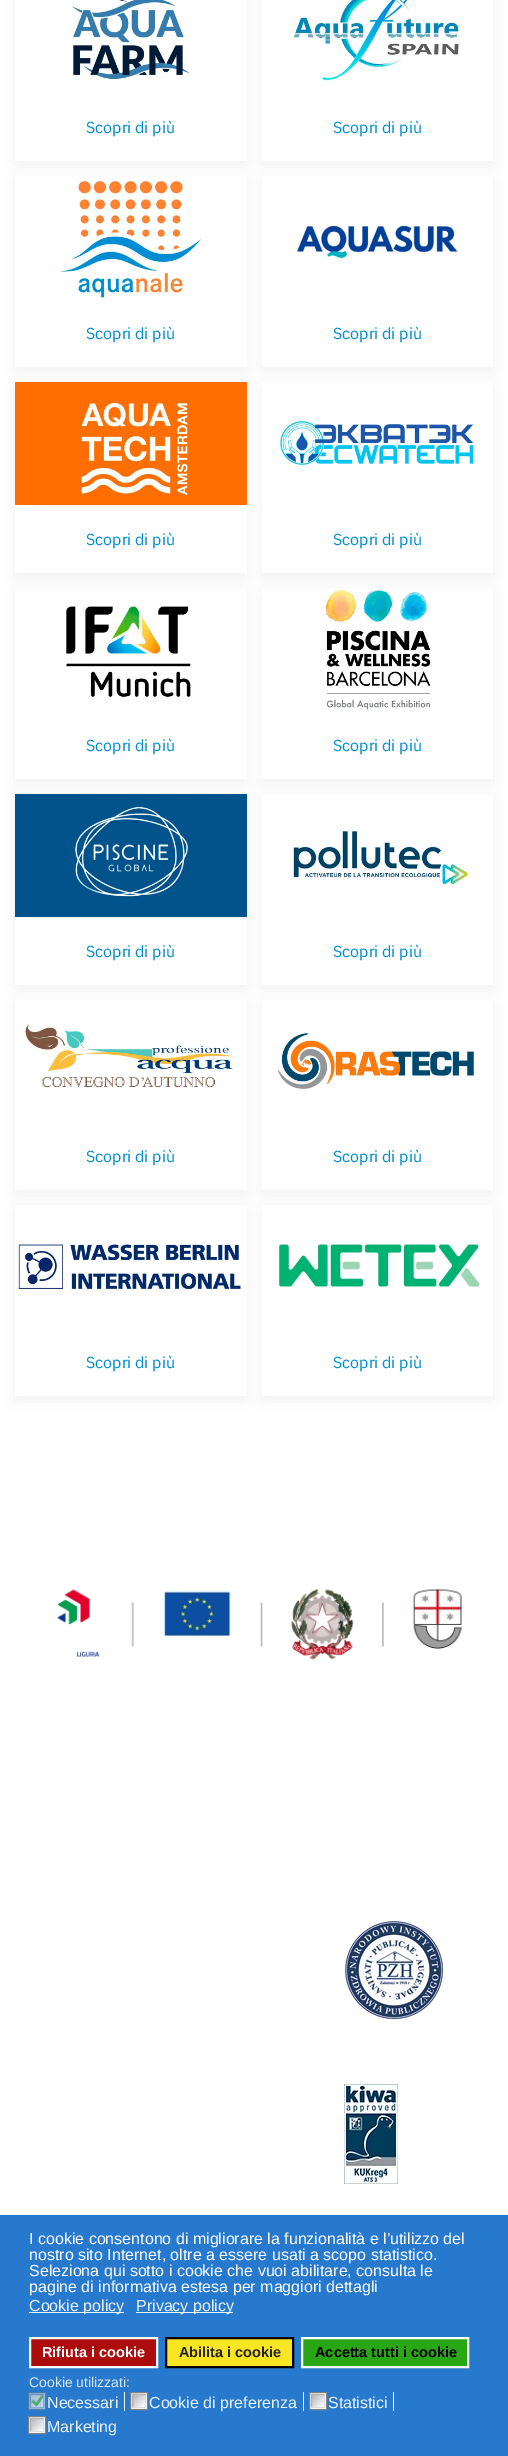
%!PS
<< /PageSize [508 2456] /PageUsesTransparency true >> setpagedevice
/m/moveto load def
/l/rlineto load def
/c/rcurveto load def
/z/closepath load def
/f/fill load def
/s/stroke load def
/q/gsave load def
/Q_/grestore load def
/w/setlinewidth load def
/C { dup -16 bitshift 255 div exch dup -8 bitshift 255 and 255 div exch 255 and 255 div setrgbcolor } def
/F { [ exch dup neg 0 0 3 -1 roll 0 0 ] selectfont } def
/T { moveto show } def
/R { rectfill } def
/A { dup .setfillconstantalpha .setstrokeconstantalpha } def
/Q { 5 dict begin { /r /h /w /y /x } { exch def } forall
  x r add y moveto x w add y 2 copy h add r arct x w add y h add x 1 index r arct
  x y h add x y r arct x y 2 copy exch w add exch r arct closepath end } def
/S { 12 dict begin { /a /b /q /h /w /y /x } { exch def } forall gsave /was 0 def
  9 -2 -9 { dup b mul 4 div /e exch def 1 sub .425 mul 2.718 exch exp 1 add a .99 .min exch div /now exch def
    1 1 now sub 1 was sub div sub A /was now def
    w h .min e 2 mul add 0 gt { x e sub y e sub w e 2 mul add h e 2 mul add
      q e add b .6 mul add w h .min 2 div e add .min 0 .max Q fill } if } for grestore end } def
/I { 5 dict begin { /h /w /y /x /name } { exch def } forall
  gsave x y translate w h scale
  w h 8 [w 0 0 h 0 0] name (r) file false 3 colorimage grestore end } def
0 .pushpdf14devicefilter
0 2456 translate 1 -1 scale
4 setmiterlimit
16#FFFFFF C
0 0 508 2456 R
q
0 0 m 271 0 l 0 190 l -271 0 l z 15 -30 m 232 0 l 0 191 l -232 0 l z eoclip newpath
16#000000 C
15 -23 232 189 0 7.5 .06 S
Q_
(1.rgb) 72 0 118 80 I
/IBMPlexSans-Regular 16 F
16#008FCF C
(Scopri di più) 86 133 T
q
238 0 m 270 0 l 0 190 l -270 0 l z 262 -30 m 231 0 l 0 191 l -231 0 l z eoclip newpath
16#000000 C
262 -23 231 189 0 7.5 .06 S
Q_
(2.rgb) 293 0 167 82 I
(Scopri di più) 333 133 T
q
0 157 m 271 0 l 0 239 l -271 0 l z 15 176 m 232 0 l 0 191 l -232 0 l z eoclip newpath
16#000000 C
15 181 232 191 0 7.5 .06 S
Q_
(3.rgb) 60 180 141 119 I
(Scopri di più) 86 339 T
q
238 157 m 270 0 l 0 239 l -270 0 l z 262 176 m 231 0 l 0 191 l -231 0 l z eoclip newpath
16#000000 C
262 181 231 191 0 7.5 .06 S
Q_
(4.rgb) 297 225 161 35 I
(Scopri di più) 333 339 T
q
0 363 m 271 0 l 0 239 l -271 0 l z 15 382 m 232 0 l 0 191 l -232 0 l z eoclip newpath
16#000000 C
15 387 232 191 0 7.5 .06 S
Q_
(5.rgb) 15 382 232 123 I
(Scopri di più) 86 545 T
q
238 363 m 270 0 l 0 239 l -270 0 l z 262 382 m 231 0 l 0 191 l -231 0 l z eoclip newpath
16#000000 C
262 387 231 191 0 7.5 .06 S
Q_
(6.rgb) 279 420 195 46 I
(Scopri di più) 333 545 T
q
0 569 m 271 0 l 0 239 l -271 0 l z 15 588 m 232 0 l 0 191 l -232 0 l z eoclip newpath
16#000000 C
15 593 232 191 0 7.5 .06 S
Q_
(7.rgb) 66 606 125 91 I
(Scopri di più) 86 751 T
q
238 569 m 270 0 l 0 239 l -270 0 l z 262 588 m 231 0 l 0 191 l -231 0 l z eoclip newpath
16#000000 C
262 593 231 191 0 7.5 .06 S
Q_
(8.rgb) 325 589 106 121 I
(Scopri di più) 333 751 T
q
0 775 m 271 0 l 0 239 l -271 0 l z 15 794 m 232 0 l 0 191 l -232 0 l z eoclip newpath
16#000000 C
15 799 232 191 0 7.5 .06 S
Q_
(9.rgb) 15 794 232 123 I
(Scopri di più) 86 957 T
q
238 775 m 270 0 l 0 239 l -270 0 l z 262 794 m 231 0 l 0 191 l -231 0 l z eoclip newpath
16#000000 C
262 799 231 191 0 7.5 .06 S
Q_
(10.rgb) 293 831 176 55 I
(Scopri di più) 333 957 T
q
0 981 m 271 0 l 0 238 l -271 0 l z 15 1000 m 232 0 l 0 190 l -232 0 l z eoclip newpath
16#000000 C
15 1005 232 190 0 7.5 .06 S
Q_
(11.rgb) 25 1024 210 65 I
(Scopri di più) 86 1162 T
q
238 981 m 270 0 l 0 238 l -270 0 l z 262 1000 m 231 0 l 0 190 l -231 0 l z eoclip newpath
16#000000 C
262 1005 231 190 0 7.5 .06 S
Q_
(12.rgb) 278 1032 198 57 I
(Scopri di più) 333 1162 T
q
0 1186 m 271 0 l 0 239 l -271 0 l z 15 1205 m 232 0 l 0 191 l -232 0 l z eoclip newpath
16#000000 C
15 1210 232 191 0 7.5 .06 S
Q_
(13.rgb) 17 1244 224 46 I
(Scopri di più) 86 1368 T
q
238 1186 m 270 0 l 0 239 l -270 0 l z 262 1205 m 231 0 l 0 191 l -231 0 l z eoclip newpath
16#000000 C
262 1210 231 191 0 7.5 .06 S
Q_
(14.rgb) 277 1243 203 45 I
(Scopri di più) 333 1368 T
(15.rgb) 57 1588 405 72 I
(16.rgb) 344 1920 100 100 I
(17.rgb) 344 2084 54 100 I
16#2679CC C
0 2215 508 241 R
/LiberationSans-Regular 16 F
16#FFFFFF C
(I cookie consentono di migliorare la funzionalità e l’utilizzo del) 29 2244 T
(nostro sito Internet, oltre a essere usati a scopo statistico.) 29 2260 T
(Seleziona qui sotto i cookie che vuoi abilitare, consulta le) 29 2276 T
(pagine di informativa estesa per maggiori dettagli) 29 2292 T
16#E9F2FA C
29 2312 95 1 R
(Cookie policy) 29 2311 T
136 2312 97 1 R
(Privacy policy) 136 2311 T
16#AD0C0C C
30 2338 m 127 0 l 0 29 l -127 0 l z q f Q_
16#FFFFFF C
2 w
s
/LiberationSans-Bold 14.5 F
(Rifiuta i cookie) 42 2357 T
16#FAE523 C
166 2338 m 127 0 l 0 29 l -127 0 l z q f Q_
16#000000 C
s
16#242424 C
(Abilita i cookie) 179 2357 T
16#28A614 C
302 2338 m 166 0 l 0 29 l -166 0 l z q f Q_
16#FFFFFF C
s
16#000000 C
(Accetta tutti i cookie) 315 2357 T
/LiberationSans-Regular 14 F
16#D4E4F5 C
(Cookie utilizzati:) 29 2387 T
16#93BCE6 C
28.5 2392.5 17 17 .5 Q q f Q_
16#537DA6 C
1 w
s
(18.rgb) 30 2394 14 14 I
16#81ABD5 C
43.5 2394.5 m 0 6.5 l 0 8.5 2 6.5 -6.5 6.5 c -6.5 0 l s
16#6D96C0 C
30.5 2407.5 m 0 -6.5 l 0 -8.5 -2 -6.5 6.5 -6.5 c 6.5 0 l s
16#E9F2FA C
124 2392 1 19 R
/LiberationSans-Regular 16 F
(Necessari) 47 2408 T
16#FFFFFF C
130.5 2392.5 17 17 .5 Q q f Q_
16#808080 C
s
q 133 2395 m 12 0 l 0 12 l -12 0 l z clip newpath
<< /ShadingType 2 /ColorSpace /DeviceRGB /Coords [133 2395 145 2407] /Extend [true true] /Function << /FunctionType 2 /Domain [0 1] /C0 [.694 .714 .745] /C1 [1 1 1] /N 1 >> >> shfill Q_
16#DCDDDE C
145.5 2394.5 m 0 6.5 l 0 8.5 2 6.5 -6.5 6.5 c -6.5 0 l s
16#B3B3B3 C
132.5 2407.5 m 0 -6.5 l 0 -8.5 -2 -6.5 6.5 -6.5 c 6.5 0 l s
16#E9F2FA C
303 2392 1 19 R
(Cookie di preferenza) 149 2408 T
16#FFFFFF C
309.5 2392.5 17 17 .5 Q q f Q_
16#808080 C
s
q 312 2395 m 12 0 l 0 12 l -12 0 l z clip newpath
<< /ShadingType 2 /ColorSpace /DeviceRGB /Coords [312 2395 324 2407] /Extend [true true] /Function << /FunctionType 2 /Domain [0 1] /C0 [.694 .714 .745] /C1 [1 1 1] /N 1 >> >> shfill Q_
16#DCDDDE C
324.5 2394.5 m 0 6.5 l 0 8.5 2 6.5 -6.5 6.5 c -6.5 0 l s
16#B3B3B3 C
311.5 2407.5 m 0 -6.5 l 0 -8.5 -2 -6.5 6.5 -6.5 c 6.5 0 l s
16#E9F2FA C
393 2392 1 19 R
(Statistici) 328 2408 T
16#FFFFFF C
28.5 2416.5 17 17 .5 Q q f Q_
16#808080 C
s
q 31 2419 m 12 0 l 0 12 l -12 0 l z clip newpath
<< /ShadingType 2 /ColorSpace /DeviceRGB /Coords [31 2419 43 2431] /Extend [true true] /Function << /FunctionType 2 /Domain [0 1] /C0 [.694 .714 .745] /C1 [1 1 1] /N 1 >> >> shfill Q_
16#DCDDDE C
43.5 2418.5 m 0 6.5 l 0 8.5 2 6.5 -6.5 6.5 c -6.5 0 l s
16#B3B3B3 C
30.5 2431.5 m 0 -6.5 l 0 -8.5 -2 -6.5 6.5 -6.5 c 6.5 0 l s
16#E9F2FA C
(Marketing) 47 2432 T
.poppdf14devicefilter showpage
